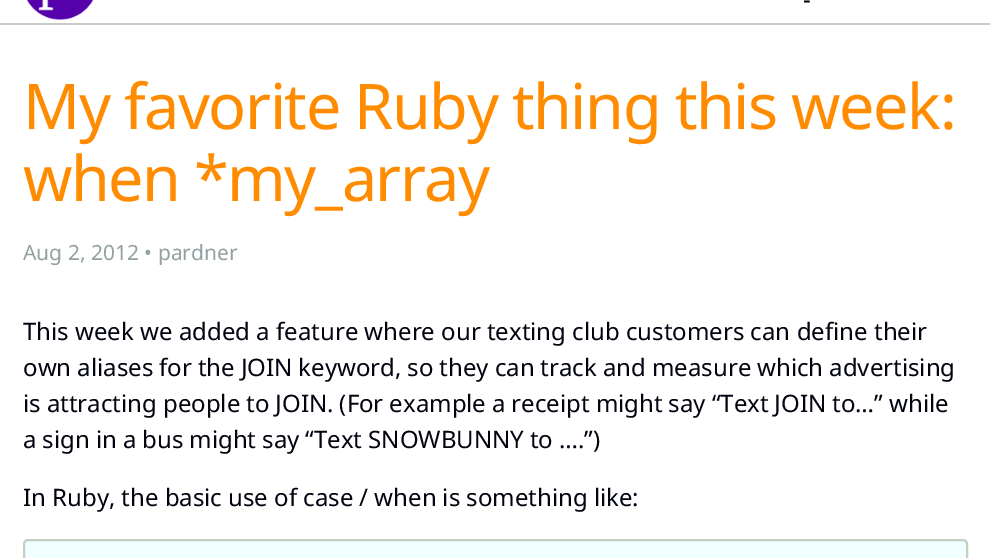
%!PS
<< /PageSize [990 558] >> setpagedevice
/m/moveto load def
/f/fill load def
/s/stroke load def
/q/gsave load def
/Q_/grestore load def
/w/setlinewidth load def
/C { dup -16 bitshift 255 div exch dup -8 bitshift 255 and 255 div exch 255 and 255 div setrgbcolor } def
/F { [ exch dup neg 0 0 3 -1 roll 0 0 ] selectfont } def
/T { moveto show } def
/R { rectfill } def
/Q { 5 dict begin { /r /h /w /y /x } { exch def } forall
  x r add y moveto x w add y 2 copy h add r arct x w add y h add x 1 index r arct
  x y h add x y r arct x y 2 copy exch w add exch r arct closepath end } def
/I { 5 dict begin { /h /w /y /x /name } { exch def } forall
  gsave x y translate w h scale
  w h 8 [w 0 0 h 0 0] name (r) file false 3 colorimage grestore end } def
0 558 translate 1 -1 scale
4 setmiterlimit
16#FFFFFF C
0 0 990 558 R
16#C8CCC2 C
0 23 990 2 R
(1.rgb) 26 0 68 20 I
/NotoSans-Regular 24 F
16#020410 C
(-) 803 8 T
/NotoSans-Regular 63 F
16#FF8C00 C
23 129 m -.25 0 32 -1.5 0 (My favorite Ruby thing this week:) awidthshow
23 201 m -1 0 32 -1.5 0 (when *my_array) awidthshow
/NotoSans-Regular 21 F
16#93A1A1 C
(Aug 2, 2012 • pardner) 23 260 T
/NotoSans-Regular 24 F
16#020410 C
(This week we added a feature where our texting club customers can define their) 23 340 T
23 376 m -.25 0 32 (own aliases for the JOIN keyword, so they can track and measure which advertising) widthshow
23 412 m -.25 0 32 (is attracting people to JOIN. \(For example a receipt might say “Text JOIN to…” while) widthshow
23 448 m -.25 0 32 (a sign in a bus might say “Text SNOWBUNNY to ….”\)) widthshow
23 506 m -.1 0 32 (In Ruby, the basic use of case / when is something like:) widthshow
16#F0FFFF C
24 540 943 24 4 Q q f Q_
16#C8CCC2 C
2 w
s
showpage
